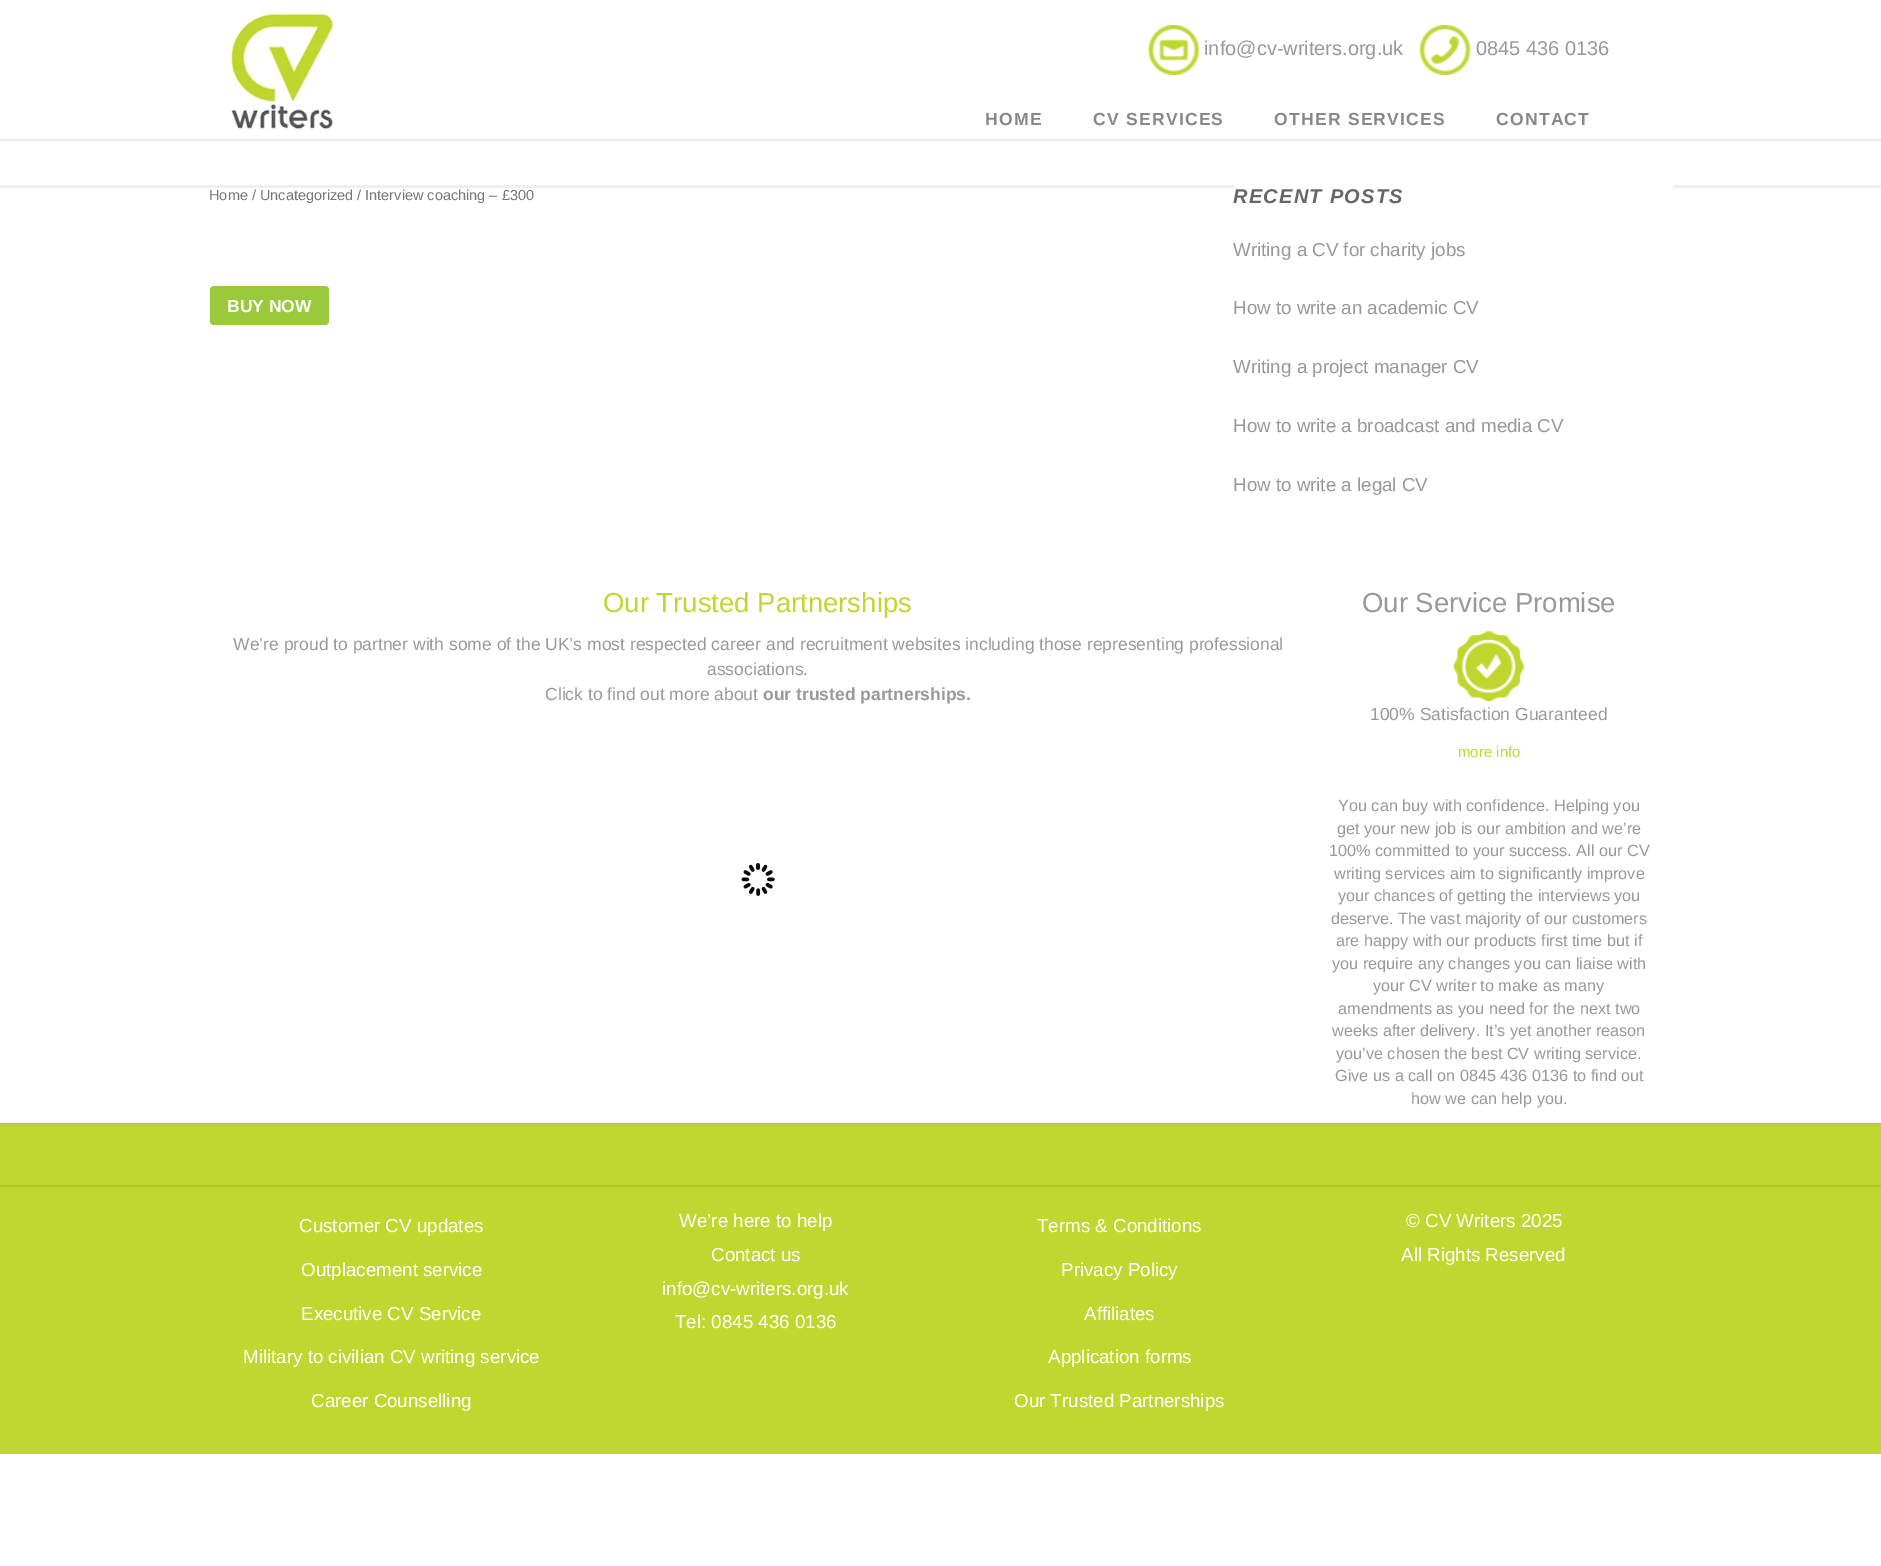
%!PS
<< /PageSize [1881 1566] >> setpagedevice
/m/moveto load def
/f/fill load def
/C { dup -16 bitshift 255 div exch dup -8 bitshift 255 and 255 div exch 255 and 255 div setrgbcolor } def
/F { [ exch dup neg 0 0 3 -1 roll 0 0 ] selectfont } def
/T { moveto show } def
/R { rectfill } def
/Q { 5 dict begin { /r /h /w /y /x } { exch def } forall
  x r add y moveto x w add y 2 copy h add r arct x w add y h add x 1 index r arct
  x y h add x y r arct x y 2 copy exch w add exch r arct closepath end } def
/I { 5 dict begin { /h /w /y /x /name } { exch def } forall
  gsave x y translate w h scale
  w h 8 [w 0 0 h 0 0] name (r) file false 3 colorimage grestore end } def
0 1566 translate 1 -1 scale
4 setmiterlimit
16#FFFFFF C
0 0 1881 1566 R
(1.rgb) 0 138 1881 4 I
(2.rgb) 229 12 105 118 I
(3.rgb) 1148 25 52 50 I
/LiberationSans-Regular 20 F
16#999999 C
(info@cv-writers.org.uk) 1204 55 T
(4.rgb) 1419 25 52 50 I
(0845 436 0136) 1476 55 T
/LiberationSans-Bold 17.5 F
16#888888 C
985 125 m 1.25 0 (HOME) ashow
1093 125 m 1.25 0 (CV SERVICES) ashow
1274 125 m 1.25 0 (OTHER SERVICES) ashow
1496 125 m 1.25 0 (CONTACT) ashow
/LiberationSans-Regular 14.5 F
16#767676 C
(Home / Uncategorized / Interview coaching – £300) 209 200 T
16#9ACA3C C
210 286 119 39 4 Q f
/LiberationSans-Bold 17.5 F
16#FFFFFF C
(BUY NOW) 227 312 T
16#EFEFEF C
0 185 1881 3 R
16#FFFFFF C
1234 185 439 3 R
/LiberationSans-BoldItalic 20 F
16#666666 C
1233 203 m 1.25 0 (RECENT POSTS) ashow
/LiberationSans-Regular 18.75 F
16#999999 C
(Writing a CV for charity jobs) 1233 256 T
(How to write an academic CV) 1233 314 T
(Writing a project manager CV) 1233 373 T
(How to write a broadcast and media CV) 1233 432 T
(How to write a legal CV) 1233 491 T
/LiberationSans-Regular 27.5 F
16#C0D72F C
(Our Trusted Partnerships) 603 612 T
/LiberationSans-Regular 17.5 F
16#999999 C
(We’re proud to partner with some of the UK’s most respected career and recruitment websites including those representing professional) 233 650 T
(associations.) 707 675 T
(Click to find out more about) 545 700 T
/LiberationSans-Bold 17.5 F
(our trusted partnerships.) 763 700 T
(5.rgb) 741 863 34 33 I
/LiberationSans-Regular 27.5 F
(Our Service Promise) 1362 612 T
(6.rgb) 1453 631 71 71 I
/LiberationSans-Regular 17.5 F
(100% Satisfaction Guaranteed) 1370 720 T
/LiberationSans-Regular 15 F
16#C0D72F C
(more info) 1458 757 T
/LiberationSans-Regular 16.25 F
16#999999 C
(You can buy with confidence. Helping you) 1338 811 T
(get your new job is our ambition and we’re) 1337 834 T
(100% committed to your success. All our CV) 1329 856 T
(writing services aim to significantly improve) 1334 879 T
(your chances of getting the interviews you) 1338 901 T
(deserve. The vast majority of our customers) 1331 924 T
(are happy with our products first time but if) 1336 946 T
(you require any changes you can liaise with) 1332 969 T
(your CV writer to make as many) 1373 991 T
(amendments as you need for the next two) 1338 1014 T
(weeks after delivery. It’s yet another reason) 1332 1036 T
(you’ve chosen the best CV writing service.) 1336 1059 T
(Give us a call on 0845 436 0136 to find out) 1335 1081 T
(how we can help you.) 1411 1104 T
16#C0D72F C
0 1123 1881 331 R
(7.rgb) 0 1122 1881 66 I
/LiberationSans-Regular 18.75 F
16#FFFFFF C
(Customer CV updates) 299 1232 T
(Outplacement service) 301 1276 T
(Executive CV Service) 301 1320 T
(Military to civilian CV writing service) 243 1363 T
(Career Counselling) 311 1407 T
(We’re here to help) 679 1227 T
(Contact us) 711 1261 T
(info@cv-writers.org.uk) 662 1295 T
(Tel: 0845 436 0136) 675 1328 T
(Terms & Conditions) 1037 1232 T
(Privacy Policy) 1061 1276 T
(Affiliates) 1084 1320 T
(Application forms) 1048 1363 T
(Our Trusted Partnerships) 1014 1407 T
(© CV Writers 2025) 1406 1227 T
(All Rights Reserved) 1401 1261 T
showpage
